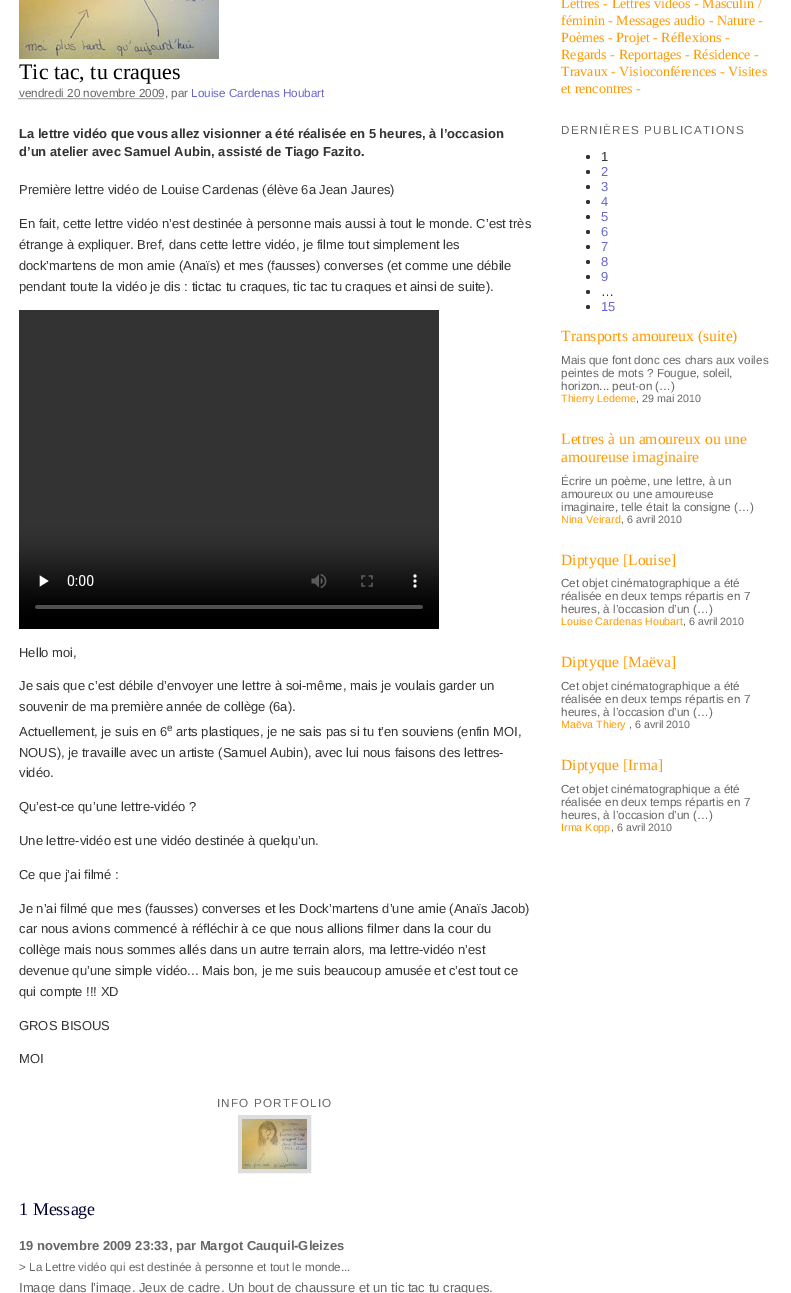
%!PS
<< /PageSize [791 1293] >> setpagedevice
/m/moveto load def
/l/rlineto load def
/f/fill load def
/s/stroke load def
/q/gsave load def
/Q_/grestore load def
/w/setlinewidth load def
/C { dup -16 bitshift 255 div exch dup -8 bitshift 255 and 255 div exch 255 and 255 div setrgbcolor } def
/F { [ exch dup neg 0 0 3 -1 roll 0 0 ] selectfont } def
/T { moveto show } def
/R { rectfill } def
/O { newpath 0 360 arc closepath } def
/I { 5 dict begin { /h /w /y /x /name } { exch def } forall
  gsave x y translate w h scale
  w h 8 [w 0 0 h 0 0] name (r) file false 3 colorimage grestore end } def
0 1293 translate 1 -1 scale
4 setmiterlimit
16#FFFFFF C
0 0 791 1293 R
(1.rgb) 19 0 200 59 I
q
19 0 754 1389 rectclip
/LiberationSerif-Regular 22 F
16#000000 C
(Tic tac, tu craques) 19 79 T
Q_
16#666666 C
[1 1] 0 setdash
18.5 98.5 m 145.5 0 l s
/LiberationSans-Regular 11.7 F
(vendredi 20 novembre 2009, par) 19 97 T
16#6666CC C
(Louise Cardenas Houbart) 191 97 T
/LiberationSans-Bold 13 F
16#333333 C
(La lettre vidéo que vous allez visionner a été réalisée en 5 heures, à l’occasion) 19 138 T
(d’un atelier avec Samuel Aubin, assisté de Tiago Fazito.) 19 156 T
/LiberationSans-Regular 13 F
(Première lettre vidéo de Louise Cardenas \(élève 6a Jean Jaures\)) 19 194 T
(En fait, cette lettre vidéo n’est destinée à personne mais aussi à tout le monde. C’est très) 19 228 T
(étrange à expliquer. Bref, dans cette lettre vidéo, je filme tout simplement les) 19 249 T
(dock’martens de mon amie \(Anaïs\) et mes \(fausses\) converses \(et comme une débile) 19 270 T
(pendant toute la vidéo je dis : tictac tu craques, tic tac tu craques et ainsi de suite\).) 19 291 T
(2.rgb) 19 310 420 319 I
(Hello moi,) 19 657 T
(Je sais que c’est débile d’envoyer une lettre à soi-même, mais je voulais garder un) 19 690 T
(souvenir de ma première année de collège \(6a\).) 19 711 T
(Actuellement, je suis en 6) 19 736 T
/LiberationSans-Regular 10 F
(e) 167 731 T
/LiberationSans-Regular 13 F
(arts plastiques, je ne sais pas si tu t’en souviens \(enfin MOI,) 176 736 T
(NOUS\), je travaille avec un artiste \(Samuel Aubin\), avec lui nous faisons des lettres-) 19 757 T
(vidéo.) 19 777 T
(Qu’est-ce qu’une lettre-vidéo ?) 19 811 T
(Une lettre-vidéo est une vidéo destinée à quelqu’un.) 19 845 T
(Ce que j’ai filmé :) 19 879 T
(Je n’ai filmé que mes \(fausses\) converses et les Dock’martens d’une amie \(Anaïs Jacob\)) 19 913 T
(car nous avions commencé à réfléchir à ce que nous allions filmer dans la cour du) 19 933 T
(collège mais nous sommes allés dans un autre terrain alors, ma lettre-vidéo n’est) 19 954 T
(devenue qu’une simple vidéo... Mais bon, je me suis beaucoup amusée et c’est tout ce) 19 975 T
(qui compte !!! XD) 19 996 T
(GROS BISOUS) 19 1030 T
(MOI) 19 1063 T
/LiberationSans-Regular 11.7 F
16#666666 C
217 1107 m 1.2 0 (INFO PORTFOLIO) ashow
16#DDDDDD C
4 w
[] 0 setdash
240 1117 69 54 rectstroke
(3.rgb) 242 1119 65 50 I
/LiberationSerif-Regular 18 F
16#000033 C
(1 Message) 19 1215 T
/LiberationSans-Bold 13 F
16#666666 C
(19 novembre 2009 23:33, par Margot Cauquil-Gleizes) 19 1250 T
/LiberationSans-Regular 11.7 F
(> La Lettre vidéo qui est destinée à personne et tout le monde...) 19 1271 T
/LiberationSans-Regular 13 F
(Image dans l’image. Jeux de cadre. Un bout de chaussure et un tic tac tu craques.) 19 1292 T
/LiberationSerif-Regular 14 F
16#FF9900 C
(Lettres - Lettres vidéos - Masculin /) 561 8 T
(féminin - Messages audio - Nature -) 561 25 T
(Poèmes - Projet - Réflexions -) 561 42 T
(Regards - Reportages - Résidence -) 561 59 T
(Travaux - Visioconférences - Visites) 561 76 T
(et rencontres -) 561 93 T
/LiberationSans-Regular 11.7 F
16#666666 C
561 134 m 1.2 0 (DERNIÈRES PUBLICATIONS) ashow
16#333333 C
588 157 2 O f
/LiberationSans-Regular 13 F
(1) 601 161 T
588 172 2 O f
16#6666CC C
(2) 601 176 T
16#333333 C
588 187 2 O f
16#6666CC C
(3) 601 191 T
16#333333 C
588 202 2 O f
16#6666CC C
(4) 601 206 T
16#333333 C
588 217 2 O f
16#6666CC C
(5) 601 221 T
16#333333 C
588 232 2 O f
16#6666CC C
(6) 601 236 T
16#333333 C
588 247 2 O f
16#6666CC C
(7) 601 251 T
16#333333 C
588 262 2 O f
16#6666CC C
(8) 601 266 T
16#333333 C
588 277 2 O f
16#6666CC C
(9) 601 281 T
16#333333 C
588 292 2 O f
(…) 601 296 T
588 307 2 O f
16#6666CC C
(15) 601 311 T
/LiberationSerif-Regular 15.6 F
16#FF9900 C
(Transports amoureux \(suite\)) 561 341 T
/LiberationSans-Regular 11.7 F
16#666666 C
(Mais que font donc ces chars aux voiles) 561 364 T
(peintes de mots ? Fougue, soleil,) 561 377 T
(horizon... peut-on \(…\)) 561 390 T
/LiberationSans-Regular 10.7 F
16#FF9900 C
(Thierry Ledeme) 561 402 T
16#666666 C
(, 29 mai 2010) 636 402 T
/LiberationSerif-Regular 15.6 F
16#FF9900 C
(Lettres à un amoureux ou une) 561 444 T
(amoureuse imaginaire) 561 462 T
/LiberationSans-Regular 11.7 F
16#666666 C
(Écrire un poème, une lettre, à un) 561 485 T
(amoureux ou une amoureuse) 561 498 T
(imaginaire, telle était la consigne \(…\)) 561 511 T
/LiberationSans-Regular 10.7 F
16#FF9900 C
(Nina Veirard) 561 523 T
16#666666 C
(, 6 avril 2010) 621 523 T
/LiberationSerif-Regular 15.6 F
16#FF9900 C
(Diptyque [Louise]) 561 565 T
/LiberationSans-Regular 11.7 F
16#666666 C
(Cet objet cinématographique a été) 561 587 T
(réalisée en deux temps répartis en 7) 561 600 T
(heures, à l’occasion d’un \(…\)) 561 613 T
/LiberationSans-Regular 10.7 F
16#FF9900 C
(Louise Cardenas Houbart) 561 625 T
16#666666 C
(, 6 avril 2010) 683 625 T
/LiberationSerif-Regular 15.6 F
16#FF9900 C
(Diptyque [Maëva]) 561 667 T
/LiberationSans-Regular 11.7 F
16#666666 C
(Cet objet cinématographique a été) 561 690 T
(réalisée en deux temps répartis en 7) 561 703 T
(heures, à l’occasion d’un \(…\)) 561 716 T
/LiberationSans-Regular 10.7 F
16#FF9900 C
(Maëva Thiery) 561 728 T
16#666666 C
(, 6 avril 2010) 629 728 T
/LiberationSerif-Regular 15.6 F
16#FF9900 C
(Diptyque [Irma]) 561 770 T
/LiberationSans-Regular 11.7 F
16#666666 C
(Cet objet cinématographique a été) 561 793 T
(réalisée en deux temps répartis en 7) 561 806 T
(heures, à l’occasion d’un \(…\)) 561 819 T
/LiberationSans-Regular 10.7 F
16#FF9900 C
(Irma Kopp) 561 831 T
16#666666 C
(, 6 avril 2010) 611 831 T
showpage
